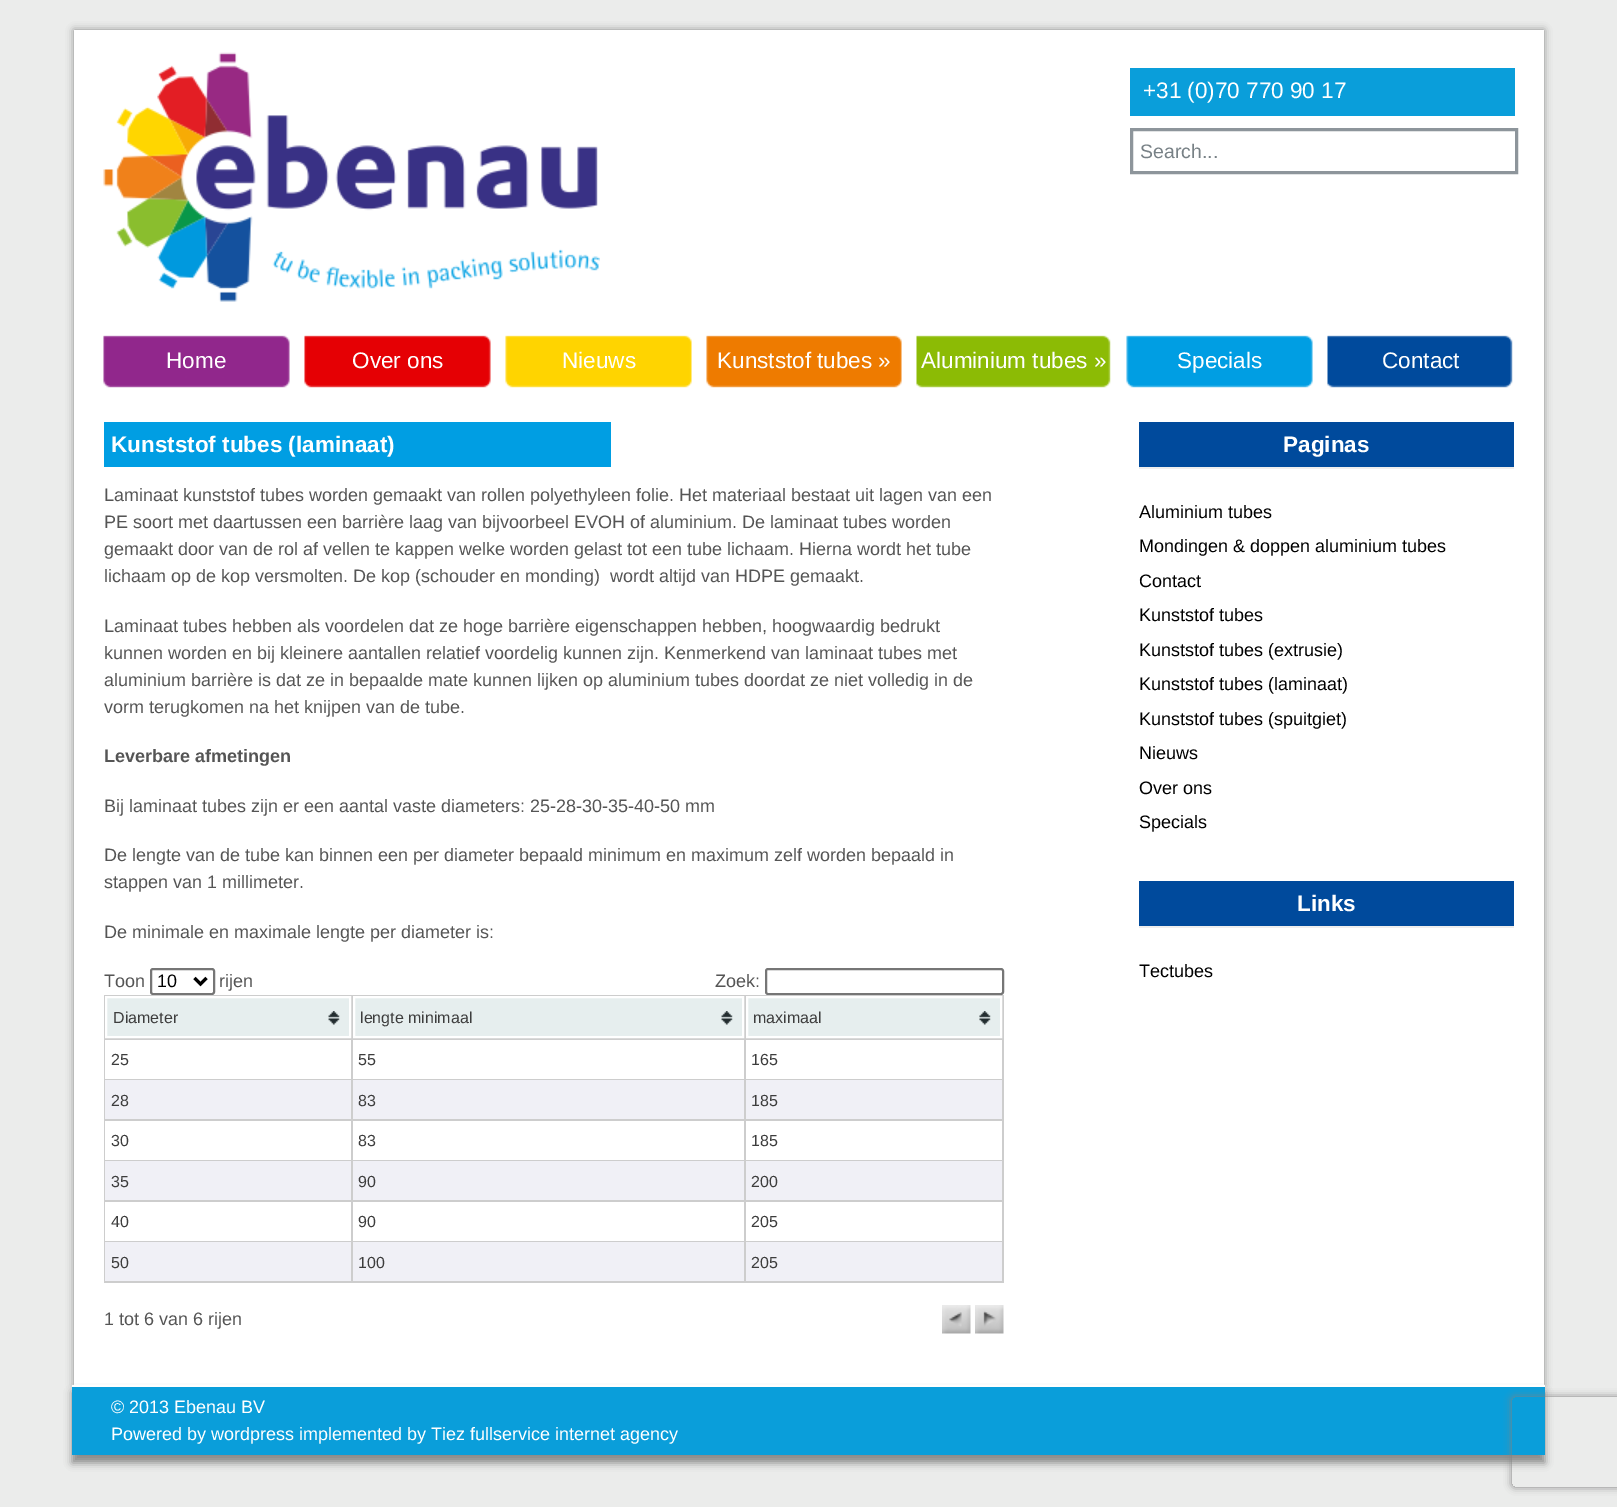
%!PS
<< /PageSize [1617 1507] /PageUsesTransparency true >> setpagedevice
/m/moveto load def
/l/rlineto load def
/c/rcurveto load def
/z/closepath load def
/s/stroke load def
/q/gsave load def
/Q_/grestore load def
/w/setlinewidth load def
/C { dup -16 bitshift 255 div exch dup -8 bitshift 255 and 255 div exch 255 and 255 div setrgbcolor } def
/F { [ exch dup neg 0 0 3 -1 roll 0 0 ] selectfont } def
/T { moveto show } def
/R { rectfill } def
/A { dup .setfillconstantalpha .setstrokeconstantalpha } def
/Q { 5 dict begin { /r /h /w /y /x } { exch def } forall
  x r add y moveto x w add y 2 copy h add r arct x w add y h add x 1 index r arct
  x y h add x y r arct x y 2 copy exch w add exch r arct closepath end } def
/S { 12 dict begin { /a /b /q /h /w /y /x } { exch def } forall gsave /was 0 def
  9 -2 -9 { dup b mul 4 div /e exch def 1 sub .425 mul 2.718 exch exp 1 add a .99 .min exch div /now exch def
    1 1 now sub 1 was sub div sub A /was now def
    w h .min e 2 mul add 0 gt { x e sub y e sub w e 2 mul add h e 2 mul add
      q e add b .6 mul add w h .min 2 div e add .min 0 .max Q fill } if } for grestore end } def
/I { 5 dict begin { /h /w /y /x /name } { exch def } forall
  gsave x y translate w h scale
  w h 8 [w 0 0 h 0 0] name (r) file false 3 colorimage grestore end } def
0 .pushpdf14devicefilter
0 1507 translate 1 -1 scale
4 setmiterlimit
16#EBECEB C
0 0 1617 1507 R
16#888888 C
74 30 1470 1355 0 4 1 S
16#FFFFFF C
74 30 1470 1355 R
(1.rgb) 103 52 497 250 I
16#0A9EDA C
1130 68 385 48 R
/LiberationSans-Regular 22.5 F
16#FFFFFF C
(+31 \(0\)70 770 90 17) 1143 98 T
16#8D959B C
3 w
1131.5 129.5 385 43 rectstroke
/LiberationSans-Regular 19.5 F
16#788186 C
(Search...) 1140 158 T
(2.rgb) 103 335 187 53 I
/LiberationSans-Regular 22.5 F
16#FFFFFF C
(Home) 166 368 T
(3.rgb) 304 335 187 53 I
(Over ons) 352 368 T
(4.rgb) 505 335 187 53 I
(Nieuws) 562 368 T
(5.rgb) 706 335 196 53 I
(Kunststof tubes ») 717 368 T
(6.rgb) 916 335 195 53 I
(Aluminium tubes ») 921 368 T
(7.rgb) 1126 335 187 53 I
(Specials) 1177 368 T
(8.rgb) 1327 335 186 53 I
(Contact) 1382 368 T
16#009EE3 C
104 422 507 45 R
/LiberationSans-Bold 22.5 F
16#FFFFFF C
(Kunststof tubes \(laminaat\)) 111 452 T
/LiberationSans-Regular 18 F
16#555555 C
(Laminaat kunststof tubes worden gemaakt van rollen polyethyleen folie. Het materiaal bestaat uit lagen van een) 104 501 T
(PE soort met daartussen een barrière laag van bijvoorbeel EVOH of aluminium. De laminaat tubes worden) 104 528 T
(gemaakt door van de rol af vellen te kappen welke worden gelast tot een tube lichaam. Hierna wordt het tube) 104 555 T
(lichaam op de kop versmolten. De kop \(schouder en monding\)  wordt altijd van HDPE gemaakt.) 104 582 T
(Laminaat tubes hebben als voordelen dat ze hoge barrière eigenschappen hebben, hoogwaardig bedrukt) 104 632 T
(kunnen worden en bij kleinere aantallen relatief voordelig kunnen zijn. Kenmerkend van laminaat tubes met) 104 659 T
(aluminium barrière is dat ze in bepaalde mate kunnen lijken op aluminium tubes doordat ze niet volledig in de) 104 686 T
(vorm terugkomen na het knijpen van de tube.) 104 713 T
/LiberationSans-Bold 18 F
(Leverbare afmetingen) 104 762 T
/LiberationSans-Regular 18 F
(Bij laminaat tubes zijn er een aantal vaste diameters: 25-28-30-35-40-50 mm) 104 812 T
(De lengte van de tube kan binnen een per diameter bepaald minimum en maximum zelf worden bepaald in) 104 861 T
(stappen van 1 millimeter.) 104 888 T
(De minimale en maximale lengte per diameter is:) 104 938 T
(Toon) 104 987 T
16#767676 C
2 w
151 969 63 25 2 Q s
16#000000 C
3 w
194.5 978 m 6 6 l 6 -6 l s
(10) 157 987 T
16#555555 C
(rijen) 219 987 T
(Zoek:) 715 987 T
16#767676 C
2 w
766 969 237 25 2 Q s
16#CDCDCD C
104 995 900 288 R
16#E6EEEE C
107 998 242 38 R
(9.rgb) 328 1011 12 14 I
16#FFFFFF C
106 997 244 40 rectstroke
/LiberationSans-Regular 16 F
16#3D3D3D C
(Diameter) 113 1023 T
16#E6EEEE C
355 998 387 38 R
(9.rgb) 721 1011 12 14 I
16#FFFFFF C
354 997 389 40 rectstroke
16#3D3D3D C
(lengte minimaal) 360 1023 T
16#E6EEEE C
748 998 252 38 R
(10.rgb) 979 1011 12 14 I
16#FFFFFF C
747 997 254 40 rectstroke
16#3D3D3D C
(maximaal) 753 1023 T
16#FFFFFF C
105 1040 246 39 R
16#3D3D3D C
(25) 111 1065 T
16#FFFFFF C
353 1040 391 39 R
16#3D3D3D C
(55) 358 1065 T
16#FFFFFF C
746 1040 256 39 R
16#3D3D3D C
(165) 751 1065 T
16#F0F0F6 C
105 1080 246 39 R
16#3D3D3D C
(28) 111 1106 T
16#F0F0F6 C
353 1080 391 39 R
16#3D3D3D C
(83) 358 1106 T
16#F0F0F6 C
746 1080 256 39 R
16#3D3D3D C
(185) 751 1106 T
16#FFFFFF C
105 1121 246 39 R
16#3D3D3D C
(30) 111 1146 T
16#FFFFFF C
353 1121 391 39 R
16#3D3D3D C
(83) 358 1146 T
16#FFFFFF C
746 1121 256 39 R
16#3D3D3D C
(185) 751 1146 T
16#F0F0F6 C
105 1161 246 39 R
16#3D3D3D C
(35) 111 1187 T
16#F0F0F6 C
353 1161 391 39 R
16#3D3D3D C
(90) 358 1187 T
16#F0F0F6 C
746 1161 256 39 R
16#3D3D3D C
(200) 751 1187 T
16#FFFFFF C
105 1202 246 39 R
16#3D3D3D C
(40) 111 1227 T
16#FFFFFF C
353 1202 391 39 R
16#3D3D3D C
(90) 358 1227 T
16#FFFFFF C
746 1202 256 39 R
16#3D3D3D C
(205) 751 1227 T
16#F0F0F6 C
105 1242 246 39 R
16#3D3D3D C
(50) 111 1268 T
16#F0F0F6 C
353 1242 391 39 R
16#3D3D3D C
(100) 358 1268 T
16#F0F0F6 C
746 1242 256 39 R
16#3D3D3D C
(205) 751 1268 T
/LiberationSans-Regular 18 F
16#555555 C
(1 tot 6 van 6 rijen) 104 1325 T
(11.rgb) 942 1305 29 29 I
(12.rgb) 975 1305 29 29 I
16#004A9C C
1139 422 375 45 R
16#EEEEEE C
1139 467 375 2 R
/LiberationSans-Bold 22.5 F
16#FFFFFF C
(Paginas) 1283 452 T
/LiberationSans-Regular 18 F
16#000000 C
(Aluminium tubes) 1139 518 T
(Mondingen & doppen aluminium tubes) 1139 552 T
(Contact) 1139 587 T
(Kunststof tubes) 1139 621 T
(Kunststof tubes \(extrusie\)) 1139 656 T
(Kunststof tubes \(laminaat\)) 1139 690 T
(Kunststof tubes \(spuitgiet\)) 1139 725 T
(Nieuws) 1139 759 T
(Over ons) 1139 794 T
(Specials) 1139 828 T
16#004A9C C
1139 881 375 45 R
16#EEEEEE C
1139 926 375 2 R
/LiberationSans-Bold 22.5 F
16#FFFFFF C
(Links) 1297 911 T
/LiberationSans-Regular 18 F
16#000000 C
(Tectubes) 1139 977 T
16#888888 C
72 1392 1473 71 0 4 1 S
16#0A9EDA C
72 1387 1473 68 R
16#FFFFFF C
72 1385 1473 2 R
(© 2013 Ebenau BV) 111 1413 T
(Powered by wordpress implemented by Tiez fullservice internet agency) 111 1440 T
q
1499 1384 m 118 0 l 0 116 l -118 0 l z 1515 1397 m 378 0 l 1.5 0 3 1.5 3 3 c 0 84 l 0 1.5 -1.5 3 -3 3 c -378 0 l -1.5 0 -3 -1.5 -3 -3 c 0 -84 l 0 -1.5 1.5 -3 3 -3 c z eoclip newpath
16#808080 C
1512 1397 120 90 3 4 1 S
Q_
.poppdf14devicefilter showpage
